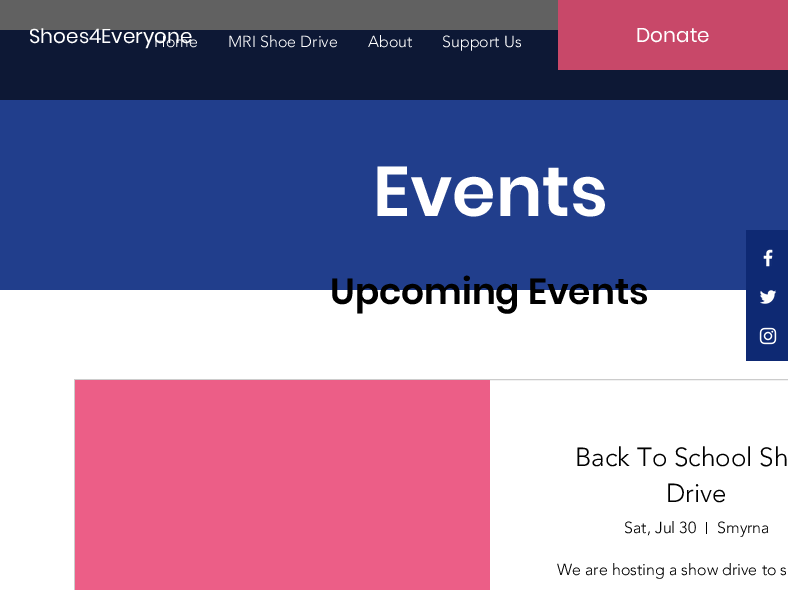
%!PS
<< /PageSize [788 590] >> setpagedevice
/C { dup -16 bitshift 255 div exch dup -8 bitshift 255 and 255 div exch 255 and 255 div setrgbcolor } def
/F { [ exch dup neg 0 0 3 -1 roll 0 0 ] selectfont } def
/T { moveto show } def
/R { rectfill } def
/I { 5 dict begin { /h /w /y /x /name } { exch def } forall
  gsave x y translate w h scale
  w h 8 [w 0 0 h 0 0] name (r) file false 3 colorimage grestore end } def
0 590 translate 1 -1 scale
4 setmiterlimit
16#FFFFFF C
0 0 788 590 R
16#616161 C
0 0 558 30 R
16#0D1835 C
0 30 788 70 R
/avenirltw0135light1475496-Light 16 F
16#FFFFFF C
(Home) 154 47 T
/Poppins-Regular 20 F
(Shoes4Everyone) 29 43 T
/avenirltw0135light1475496-Light 16 F
(MRI Shoe Drive) 228 47 T
(About) 368 47 T
(Support Us) 442 47 T
16#C84869 C
558 0 230 70 R
/Poppins-Regular 20 F
16#FFFFFF C
(Donate) 636 42 T
16#213E8C C
0 100 788 190 R
/Poppins-SemiBold 70 F
16#FFFFFF C
(Events) 373 216 T
/Poppins-SemiBold 36 F
16#000000 C
(Upcoming Events) 330 304 T
16#CCCCCC C
74.5 379.5 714 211 rectstroke
16#EC5E87 C
75 380 415 210 R
/avenirltw0135light1475496-Light 26 F
16#000000 C
(Back To School Sh) 575 466 T
(Drive) 666 502 T
/avenirltw0135light1475496-Light 16 F
(Sat, Jul 30) 624 533 T
706 522 1 12 R
(Smyrna) 717 533 T
(We are hosting a show drive to s) 557 575 T
16#0E2973 C
746 230 42 131 R
(1.rgb) 763 249 10 18 I
(2.rgb) 760 290 17 14 I
(3.rgb) 759 327 18 18 I
showpage
